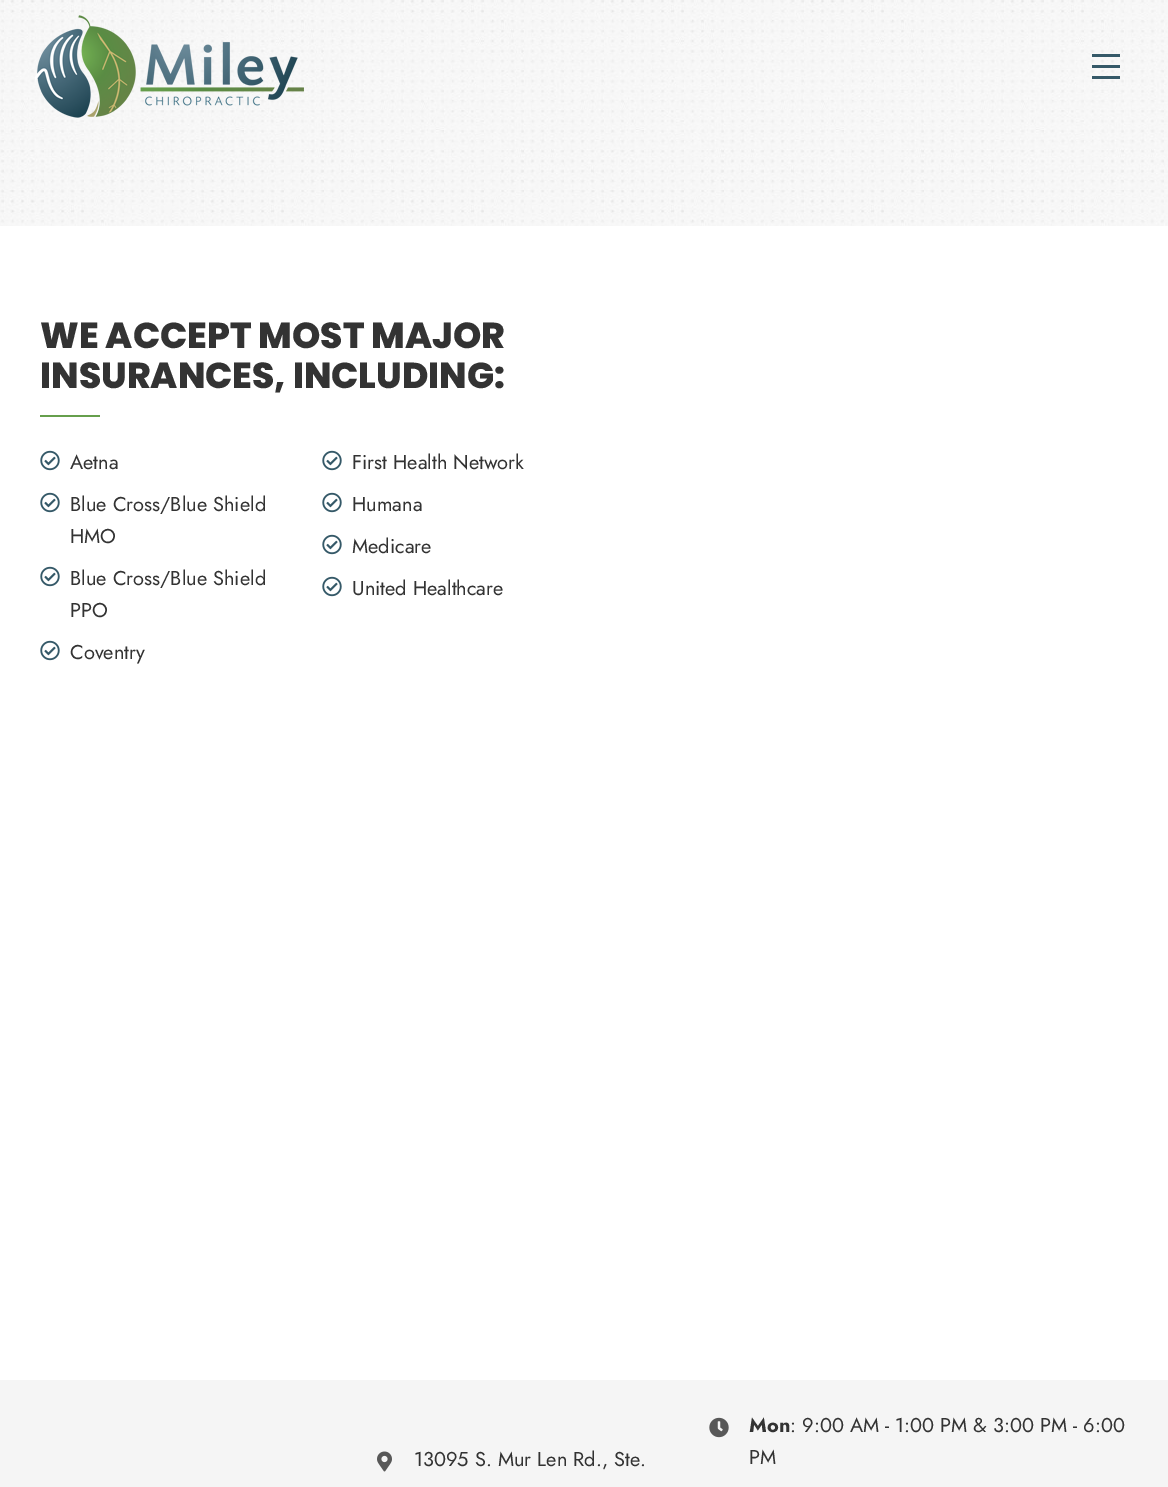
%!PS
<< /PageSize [1168 1487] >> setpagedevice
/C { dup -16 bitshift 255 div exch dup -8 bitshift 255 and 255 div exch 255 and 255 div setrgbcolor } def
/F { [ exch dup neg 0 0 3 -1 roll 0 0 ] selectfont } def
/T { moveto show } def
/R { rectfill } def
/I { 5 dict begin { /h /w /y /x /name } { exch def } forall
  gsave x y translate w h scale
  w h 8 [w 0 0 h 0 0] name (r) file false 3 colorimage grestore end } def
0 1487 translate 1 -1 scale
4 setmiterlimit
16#FFFFFF C
0 0 1168 1487 R
(2.rgb) 0 0 1168 226 I
(1.rgb) 35 15 269 103 I
16#355968 C
1092 54 28 3 R
1092 65 28 3 R
1092 76 28 3 R
/Poppins-ExtraBold 36 F
16#333333 C
(WE ACCEPT MOST MAJOR) 40 348 T
(INSURANCES, INCLUDING:) 40 388 T
16#669F4C C
40 415 60 2 R
(3.rgb) 40 450 20 21 I
/Jost-Regular 20 F
16#333333 C
(Aetna) 70 469 T
(3.rgb) 40 492 20 21 I
(Blue Cross/Blue Shield) 70 511 T
(HMO) 70 543 T
(3.rgb) 40 566 20 21 I
(Blue Cross/Blue Shield) 70 585 T
(PPO) 70 617 T
(3.rgb) 40 640 20 21 I
(Coventry) 70 659 T
(3.rgb) 322 450 20 21 I
(First Health Network) 352 469 T
(3.rgb) 322 492 20 21 I
(Humana) 352 511 T
(3.rgb) 322 534 20 21 I
(Medicare) 352 553 T
(3.rgb) 322 576 20 21 I
(United Healthcare) 352 595 T
16#F5F5F5 C
0 1380 1168 107 R
(4.rgb) 377 1451 15 21 I
16#333333 C
(13095 S. Mur Len Rd., Ste.) 414 1466 T
(5.rgb) 709 1417 20 21 I
/Jost-Bold 20 F
(Mon) 749 1432 T
/Jost-Regular 20 F
(: 9:00 AM - 1:00 PM & 3:00 PM - 6:00) 790 1432 T
(PM) 749 1464 T
showpage
